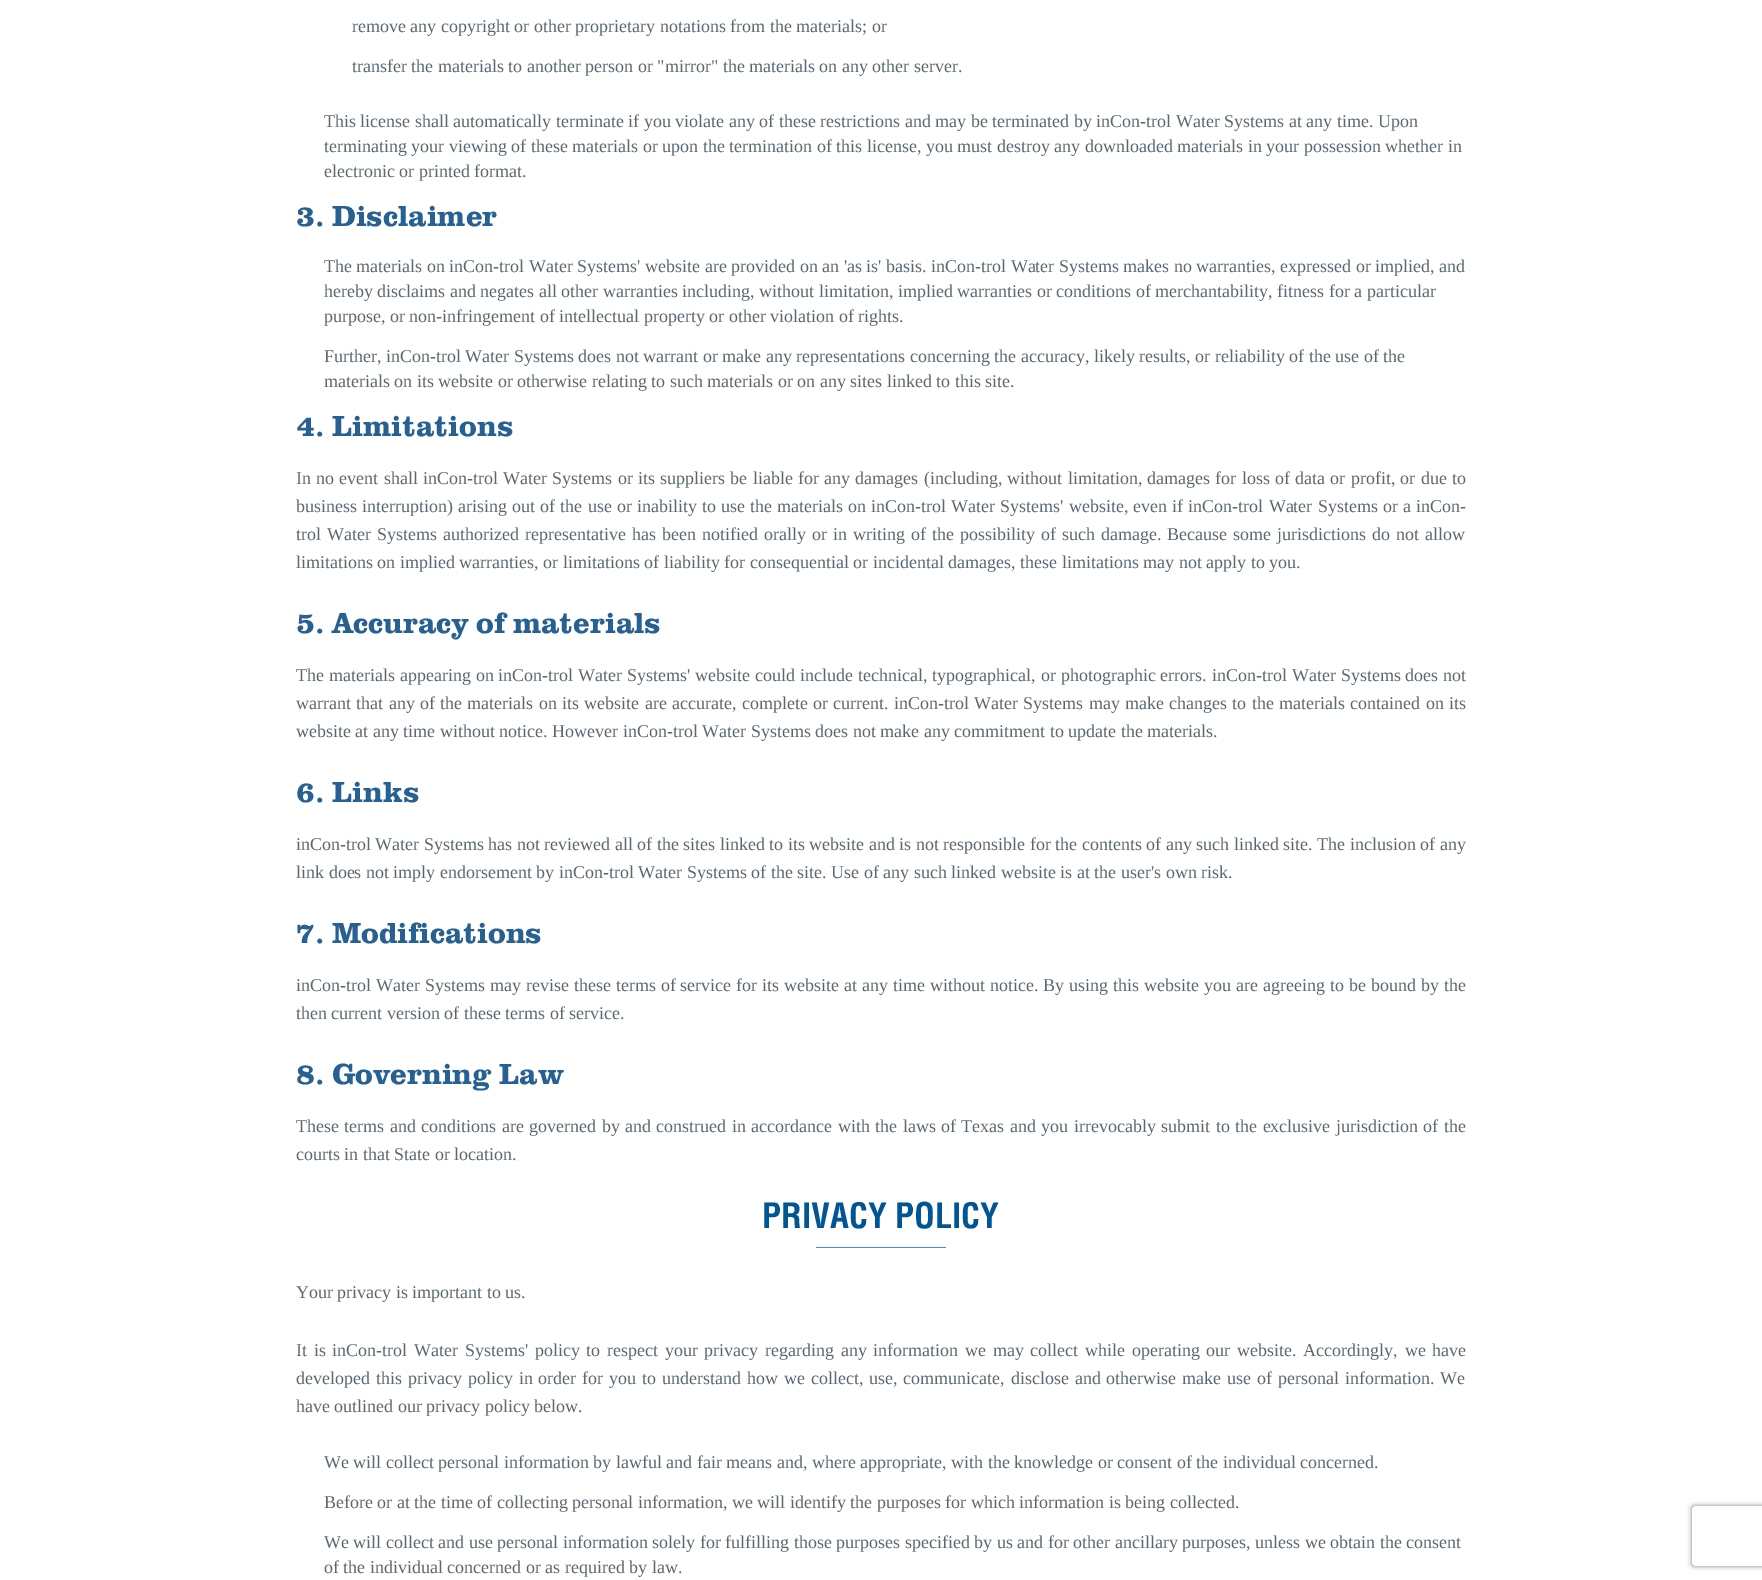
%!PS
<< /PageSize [1762 1580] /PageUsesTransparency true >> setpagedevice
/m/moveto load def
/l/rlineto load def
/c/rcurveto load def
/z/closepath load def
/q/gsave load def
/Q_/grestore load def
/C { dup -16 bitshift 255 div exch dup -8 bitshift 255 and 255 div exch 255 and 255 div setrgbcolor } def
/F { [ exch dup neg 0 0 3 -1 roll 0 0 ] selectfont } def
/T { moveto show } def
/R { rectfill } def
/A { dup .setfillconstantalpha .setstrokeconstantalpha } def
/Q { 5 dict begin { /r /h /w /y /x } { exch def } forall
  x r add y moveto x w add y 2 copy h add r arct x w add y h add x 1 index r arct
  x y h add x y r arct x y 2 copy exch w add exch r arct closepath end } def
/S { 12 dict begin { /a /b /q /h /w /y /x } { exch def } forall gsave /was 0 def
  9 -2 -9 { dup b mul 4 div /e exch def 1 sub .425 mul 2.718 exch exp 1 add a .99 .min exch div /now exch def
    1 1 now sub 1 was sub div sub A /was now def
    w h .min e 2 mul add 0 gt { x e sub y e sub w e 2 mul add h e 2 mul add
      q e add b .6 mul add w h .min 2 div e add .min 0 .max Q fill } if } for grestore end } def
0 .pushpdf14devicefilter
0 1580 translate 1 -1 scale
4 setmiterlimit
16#FFFFFF C
0 0 1762 1580 R
/LiberationSerif-Regular 18 F
16#5A6771 C
(remove any copyright or other proprietary notations from the materials; or) 352 32 T
(transfer the materials to another person or "mirror" the materials on any other server.) 352 72 T
(This license shall automatically terminate if you violate any of these restrictions and may be terminated by inCon-trol Water Systems at any time. Upon) 324 127 T
(terminating your viewing of these materials or upon the termination of this license, you must destroy any downloaded materials in your possession whether in) 324 152 T
(electronic or printed format.) 324 177 T
/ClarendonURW-Bold 30 F
16#276092 C
(3. Disclaimer) 296 226 T
/LiberationSerif-Regular 18 F
16#5A6771 C
(The materials on inCon-trol Water Systems' website are provided on an 'as is' basis. inCon-trol Water Systems makes no warranties, expressed or implied, and) 324 272 T
(hereby disclaims and negates all other warranties including, without limitation, implied warranties or conditions of merchantability, fitness for a particular) 324 297 T
(purpose, or non-infringement of intellectual property or other violation of rights.) 324 322 T
(Further, inCon-trol Water Systems does not warrant or make any representations concerning the accuracy, likely results, or reliability of the use of the) 324 362 T
(materials on its website or otherwise relating to such materials or on any sites linked to this site.) 324 387 T
/ClarendonURW-Bold 30 F
16#276092 C
(4. Limitations) 296 436 T
/LiberationSerif-Regular 18 F
16#5A6771 C
296 484 m .75 0 32 (In no event shall inCon-trol Water Systems or its suppliers be liable for any damages \(including, without limitation, damages for loss of data or profit, or due to) widthshow
296 512 m .6 0 32 (business interruption\) arising out of the use or inability to use the materials on inCon-trol Water Systems' website, even if inCon-trol Water Systems or a inCon-) widthshow
296 540 m 1.5 0 32 (trol Water Systems authorized representative has been notified orally or in writing of the possibility of such damage. Because some jurisdictions do not allow) widthshow
(limitations on implied warranties, or limitations of liability for consequential or incidental damages, these limitations may not apply to you.) 296 568 T
/ClarendonURW-Bold 30 F
16#276092 C
(5. Accuracy of materials) 296 633 T
/LiberationSerif-Regular 18 F
16#5A6771 C
296 681 m .4 0 32 (The materials appearing on inCon-trol Water Systems' website could include technical, typographical, or photographic errors. inCon-trol Water Systems does not) widthshow
296 709 m .8 0 32 (warrant that any of the materials on its website are accurate, complete or current. inCon-trol Water Systems may make changes to the materials contained on its) widthshow
(website at any time without notice. However inCon-trol Water Systems does not make any commitment to update the materials.) 296 737 T
/ClarendonURW-Bold 30 F
16#276092 C
(6. Links) 296 802 T
/LiberationSerif-Regular 18 F
16#5A6771 C
(inCon-trol Water Systems has not reviewed all of the sites linked to its website and is not responsible for the contents of any such linked site. The inclusion of any) 296 850 T
(link does not imply endorsement by inCon-trol Water Systems of the site. Use of any such linked website is at the user's own risk.) 296 878 T
/ClarendonURW-Bold 30 F
16#276092 C
(7. Modifications) 296 943 T
/LiberationSerif-Regular 18 F
16#5A6771 C
296 991 m .45 0 32 (inCon-trol Water Systems may revise these terms of service for its website at any time without notice. By using this website you are agreeing to be bound by the) widthshow
(then current version of these terms of service.) 296 1019 T
/ClarendonURW-Bold 30 F
16#276092 C
(8. Governing Law) 296 1084 T
/LiberationSerif-Regular 18 F
16#5A6771 C
296 1132 m .95 0 32 (These terms and conditions are governed by and construed in accordance with the laws of Texas and you irrevocably submit to the exclusive jurisdiction of the) widthshow
(courts in that State or location.) 296 1160 T
16#4192CE C
816 1247 130 1 R
/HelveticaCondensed-Bold 34 F
16#005594 C
(PRIVACY POLICY) 762 1228 T
/LiberationSerif-Regular 18 F
16#5A6771 C
(Your privacy is important to us.) 296 1298 T
296 1356 m 2.2 0 32 (It is inCon-trol Water Systems' policy to respect your privacy regarding any information we may collect while operating our website. Accordingly, we have) widthshow
296 1384 m 1.4 0 32 (developed this privacy policy in order for you to understand how we collect, use, communicate, disclose and otherwise make use of personal information. We) widthshow
(have outlined our privacy policy below.) 296 1412 T
(We will collect personal information by lawful and fair means and, where appropriate, with the knowledge or consent of the individual concerned.) 324 1468 T
(Before or at the time of collecting personal information, we will identify the purposes for which information is being collected.) 324 1508 T
(We will collect and use personal information solely for fulfilling those purposes specified by us and for other ancillary purposes, unless we obtain the consent) 324 1548 T
(of the individual concerned or as required by law.) 324 1573 T
q
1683 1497 m 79 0 l 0 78 l -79 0 l z 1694 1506 m 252 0 l 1 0 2 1 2 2 c 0 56 l 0 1 -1 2 -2 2 c -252 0 l -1 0 -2 -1 -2 -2 c 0 -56 l 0 -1 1 -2 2 -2 c z eoclip newpath
16#808080 C
1692 1506 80 60 2 2.5 1 S
Q_
.poppdf14devicefilter showpage
